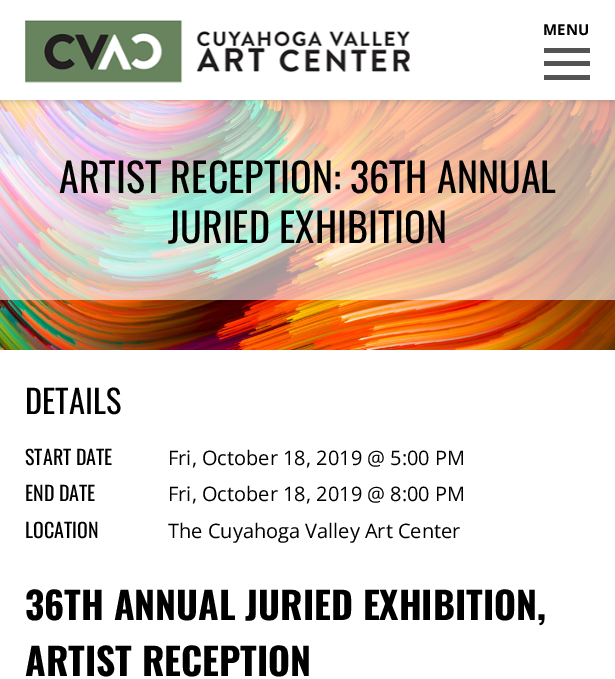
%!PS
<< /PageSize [615 679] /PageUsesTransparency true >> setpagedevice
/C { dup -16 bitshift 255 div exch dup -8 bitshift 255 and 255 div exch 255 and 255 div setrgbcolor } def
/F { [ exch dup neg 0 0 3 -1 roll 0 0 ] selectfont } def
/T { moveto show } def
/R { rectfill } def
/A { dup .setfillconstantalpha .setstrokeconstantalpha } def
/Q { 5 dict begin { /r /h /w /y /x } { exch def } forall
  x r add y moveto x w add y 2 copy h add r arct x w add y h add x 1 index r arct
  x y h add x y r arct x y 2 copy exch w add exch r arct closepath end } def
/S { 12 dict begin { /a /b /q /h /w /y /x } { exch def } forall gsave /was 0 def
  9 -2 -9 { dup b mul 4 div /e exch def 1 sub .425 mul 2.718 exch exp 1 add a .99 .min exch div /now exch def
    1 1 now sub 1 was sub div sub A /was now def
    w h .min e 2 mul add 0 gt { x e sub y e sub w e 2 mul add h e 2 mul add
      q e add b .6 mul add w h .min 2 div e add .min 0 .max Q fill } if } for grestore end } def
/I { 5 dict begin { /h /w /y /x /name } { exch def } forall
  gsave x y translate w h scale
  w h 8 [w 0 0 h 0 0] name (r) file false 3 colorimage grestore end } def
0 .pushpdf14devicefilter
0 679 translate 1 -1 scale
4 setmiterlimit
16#FFFFFF C
0 0 615 679 R
(2.rgb) 0 100 615 250 I
0.6 A
0 100 615 200 R
1 A
16#000000 C
0 0 615 100 0 3 .2 S
16#FFFFFF C
0 0 615 100 R
/OpenSans-Bold 15 F
16#000000 C
(MENU) 543 35 T
16#545454 C
544 48 46 5 R
544 61 46 5 R
544 75 46 5 R
(1.rgb) 25 20 385 63 I
/Oswald-Regular 40 F
16#000000 C
(ARTIST RECEPTION: 36TH ANNUAL) 59 193 T
(JURIED EXHIBITION) 168 243 T
/Oswald-Regular 32.5 F
(DETAILS) 25 414 T
/Oswald-Regular 20 F
(START DATE) 25 465 T
/OpenSans-Regular 20 F
(Fri, October 18, 2019 @ 5:00 PM) 168 465 T
/Oswald-Regular 20 F
(END DATE) 25 501 T
/OpenSans-Regular 20 F
(Fri, October 18, 2019 @ 8:00 PM) 168 501 T
/Oswald-Regular 20 F
(LOCATION) 25 538 T
/OpenSans-Regular 20 F
(The Cuyahoga Valley Art Center) 168 538 T
/Oswald-Bold 37.5 F
(36TH ANNUAL JURIED EXHIBITION,) 25 620 T
(ARTIST RECEPTION) 25 676 T
.poppdf14devicefilter showpage
